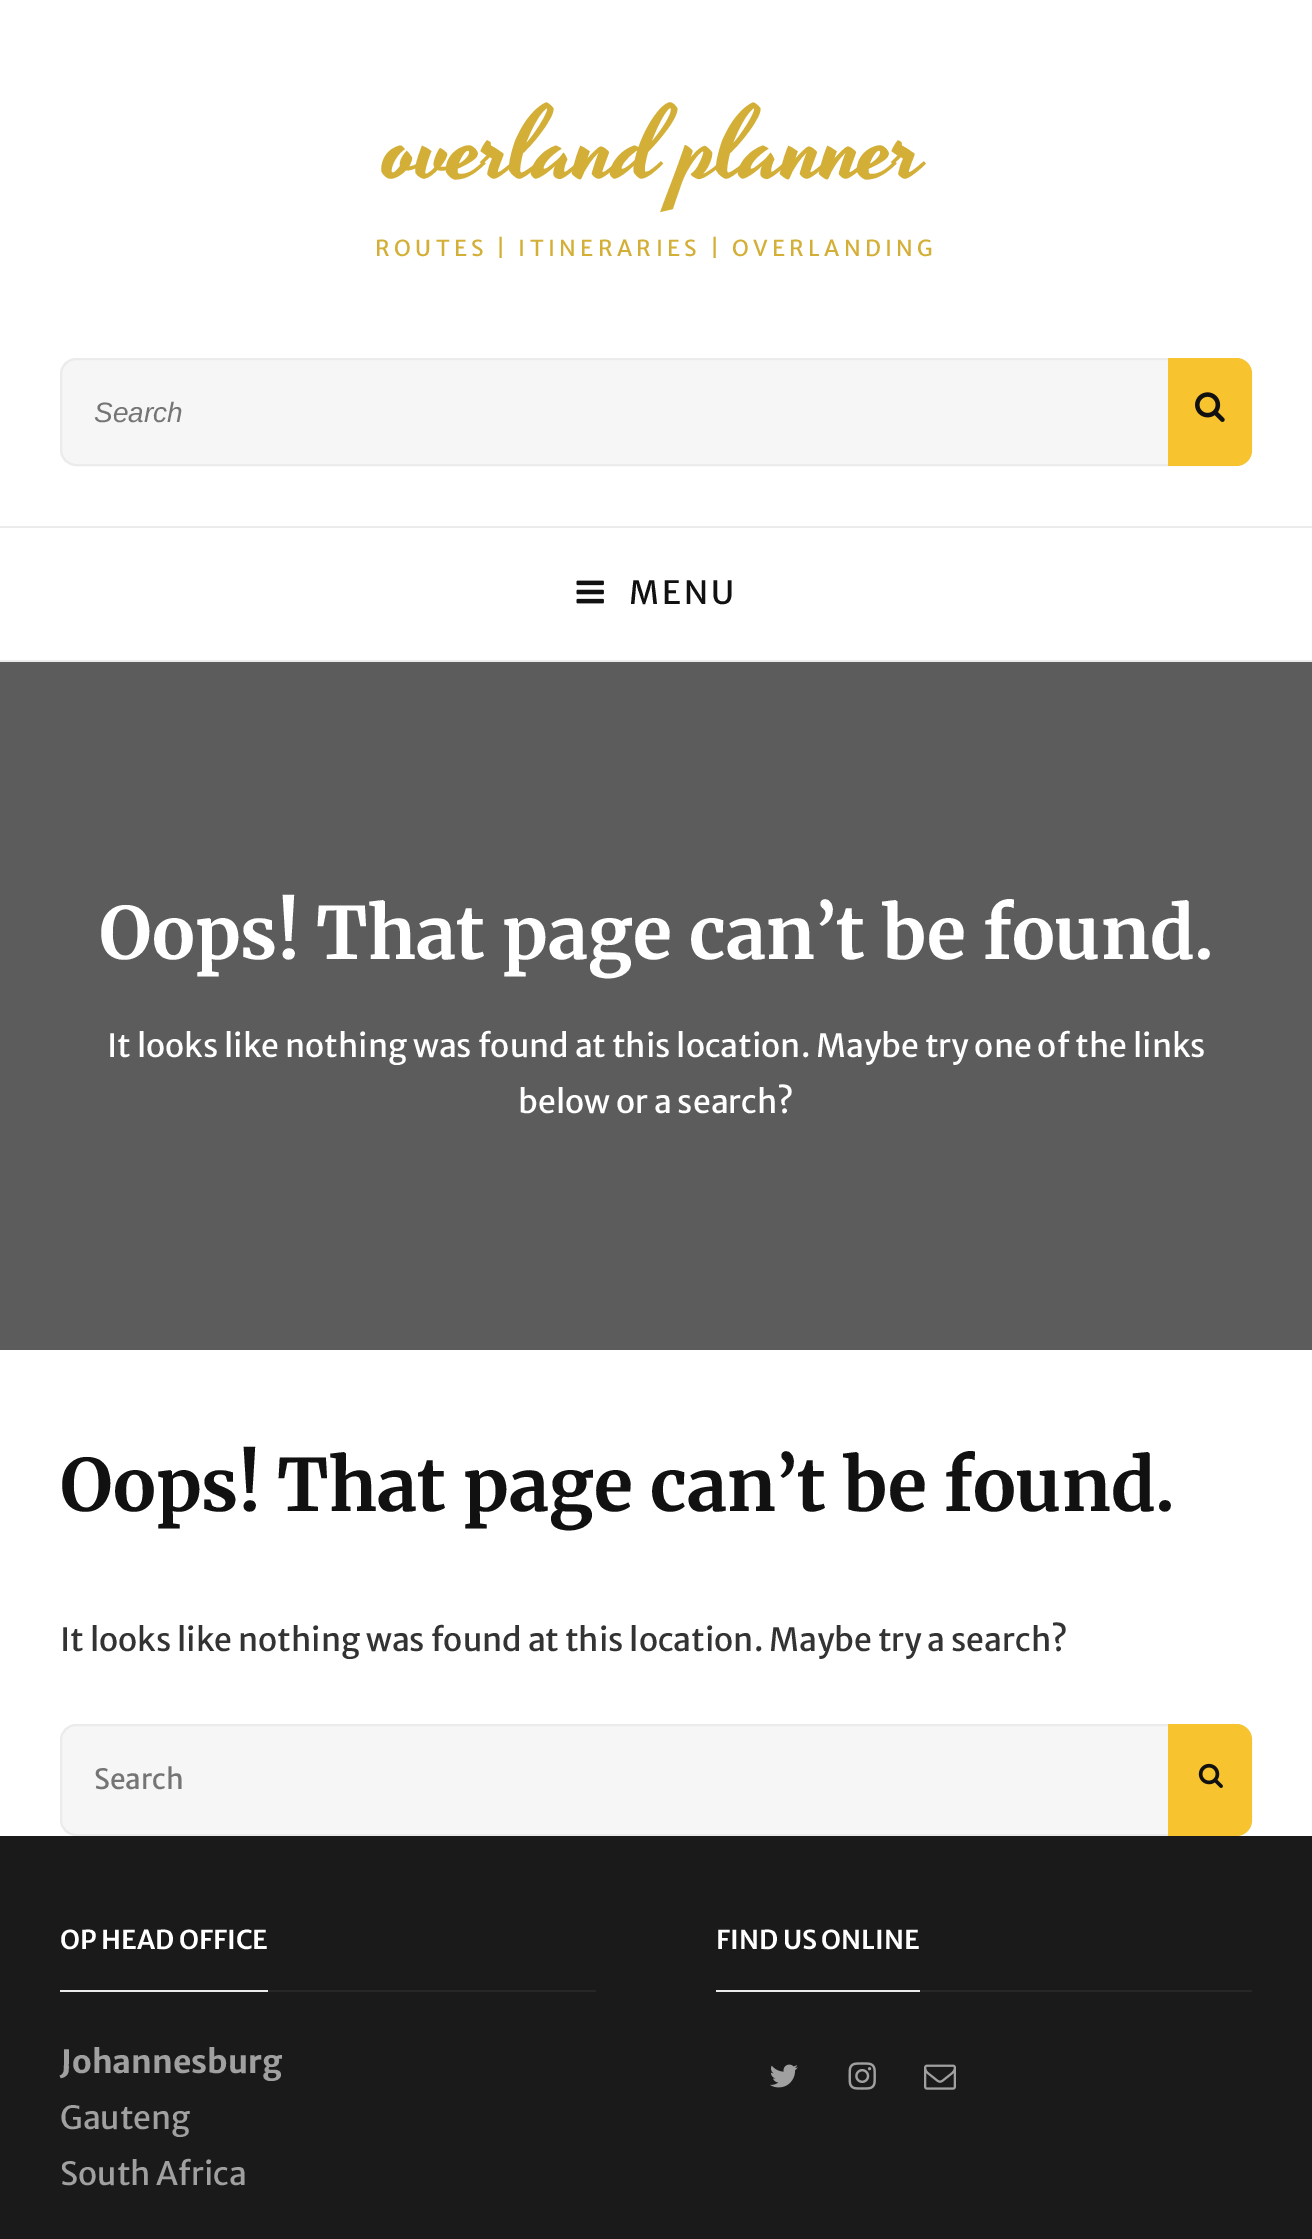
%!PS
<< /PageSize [1312 2239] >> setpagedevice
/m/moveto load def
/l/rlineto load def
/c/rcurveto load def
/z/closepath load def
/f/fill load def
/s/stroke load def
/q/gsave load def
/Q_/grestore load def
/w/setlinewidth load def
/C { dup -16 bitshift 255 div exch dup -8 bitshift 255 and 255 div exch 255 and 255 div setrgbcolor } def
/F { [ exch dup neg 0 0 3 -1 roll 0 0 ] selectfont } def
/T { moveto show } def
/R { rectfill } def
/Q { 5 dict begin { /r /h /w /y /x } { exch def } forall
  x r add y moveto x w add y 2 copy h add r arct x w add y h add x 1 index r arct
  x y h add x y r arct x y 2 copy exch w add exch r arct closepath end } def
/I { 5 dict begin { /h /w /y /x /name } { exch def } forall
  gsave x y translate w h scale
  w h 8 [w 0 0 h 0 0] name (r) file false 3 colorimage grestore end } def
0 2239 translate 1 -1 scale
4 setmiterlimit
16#FFFFFF C
0 0 1312 2239 R
/Yesteryear-Regular 104 F
16#D4AF37 C
388 176 m -2.6 0 (overland planner) ashow
/MerriweatherSans-Regular 22 F
375 256 m 4.4 0 (ROUTES | ITINERARIES | OVERLANDING) ashow
16#F6F6F6 C
61 359 1190 106 15 Q q f Q_
16#EBEBEB C
2 w
s
/LiberationSans-Italic 28 F
16#757575 C
(Search) 94 422 T
16#F7C32E C
1168 358 m 68 0 l 9 0 16 7 16 16 c 0 76 l 0 9 -7 16 -16 16 c -68 0 l z f
(1.rgb) 1195 392 30 30 I
16#EBEBEB C
0 526 1312 2 R
0 660 1312 2 R
(2.rgb) 576 580 28 24 I
/MerriweatherSans-Regular 32 F
16#111111 C
629 604 m 3 0 (MENU) ashow
16#5C5C5C C
0 662 1312 688 R
/Merriweather-Bold 72 F
16#FFFFFF C
(Oops! That page can’t be found.) 99 959 T
/MerriweatherSans-Regular 32 F
(It looks like nothing was found at this location. Maybe try one of the links) 107 1057 T
(below or a search?) 518 1113 T
/Merriweather-Bold 72 F
16#111111 C
(Oops! That page can’t be found.) 60 1511 T
/MerriweatherSans-Regular 32 F
16#333333 C
(It looks like nothing was found at this location. Maybe try a search?) 60 1651 T
16#F6F6F6 C
61 1725 1190 110 15 Q q f Q_
16#EBEBEB C
s
/MerriweatherSans-Regular 28 F
16#757575 C
(Search) 94 1789 T
16#F7C32E C
1168 1724 m 68 0 l 9 0 16 7 16 16 c 0 80 l 0 9 -7 16 -16 16 c -68 0 l z f
(3.rgb) 1198 1763 25 25 I
16#1A1A1A C
0 1836 1312 403 R
16#272727 C
268 1990 328 2 R
/MerriweatherSans-SemiBold 26 F
16#FFFFFF C
(OP HEAD OFFICE) 60 1949 T
16#EBEBEB C
60 1990 208 2 R
/MerriweatherSans-Bold 32 F
16#A0A0A0 C
(Johannesburg) 60 2073 T
/MerriweatherSans-Regular 32 F
(Gauteng) 60 2129 T
(South Africa) 60 2185 T
16#272727 C
920 1990 332 2 R
/MerriweatherSans-SemiBold 26 F
16#FFFFFF C
(FIND US ONLINE) 716 1949 T
16#EBEBEB C
716 1990 204 2 R
(4.rgb) 770 2064 28 24 I
(5.rgb) 848 2062 28 28 I
(6.rgb) 924 2064 32 26 I
showpage
